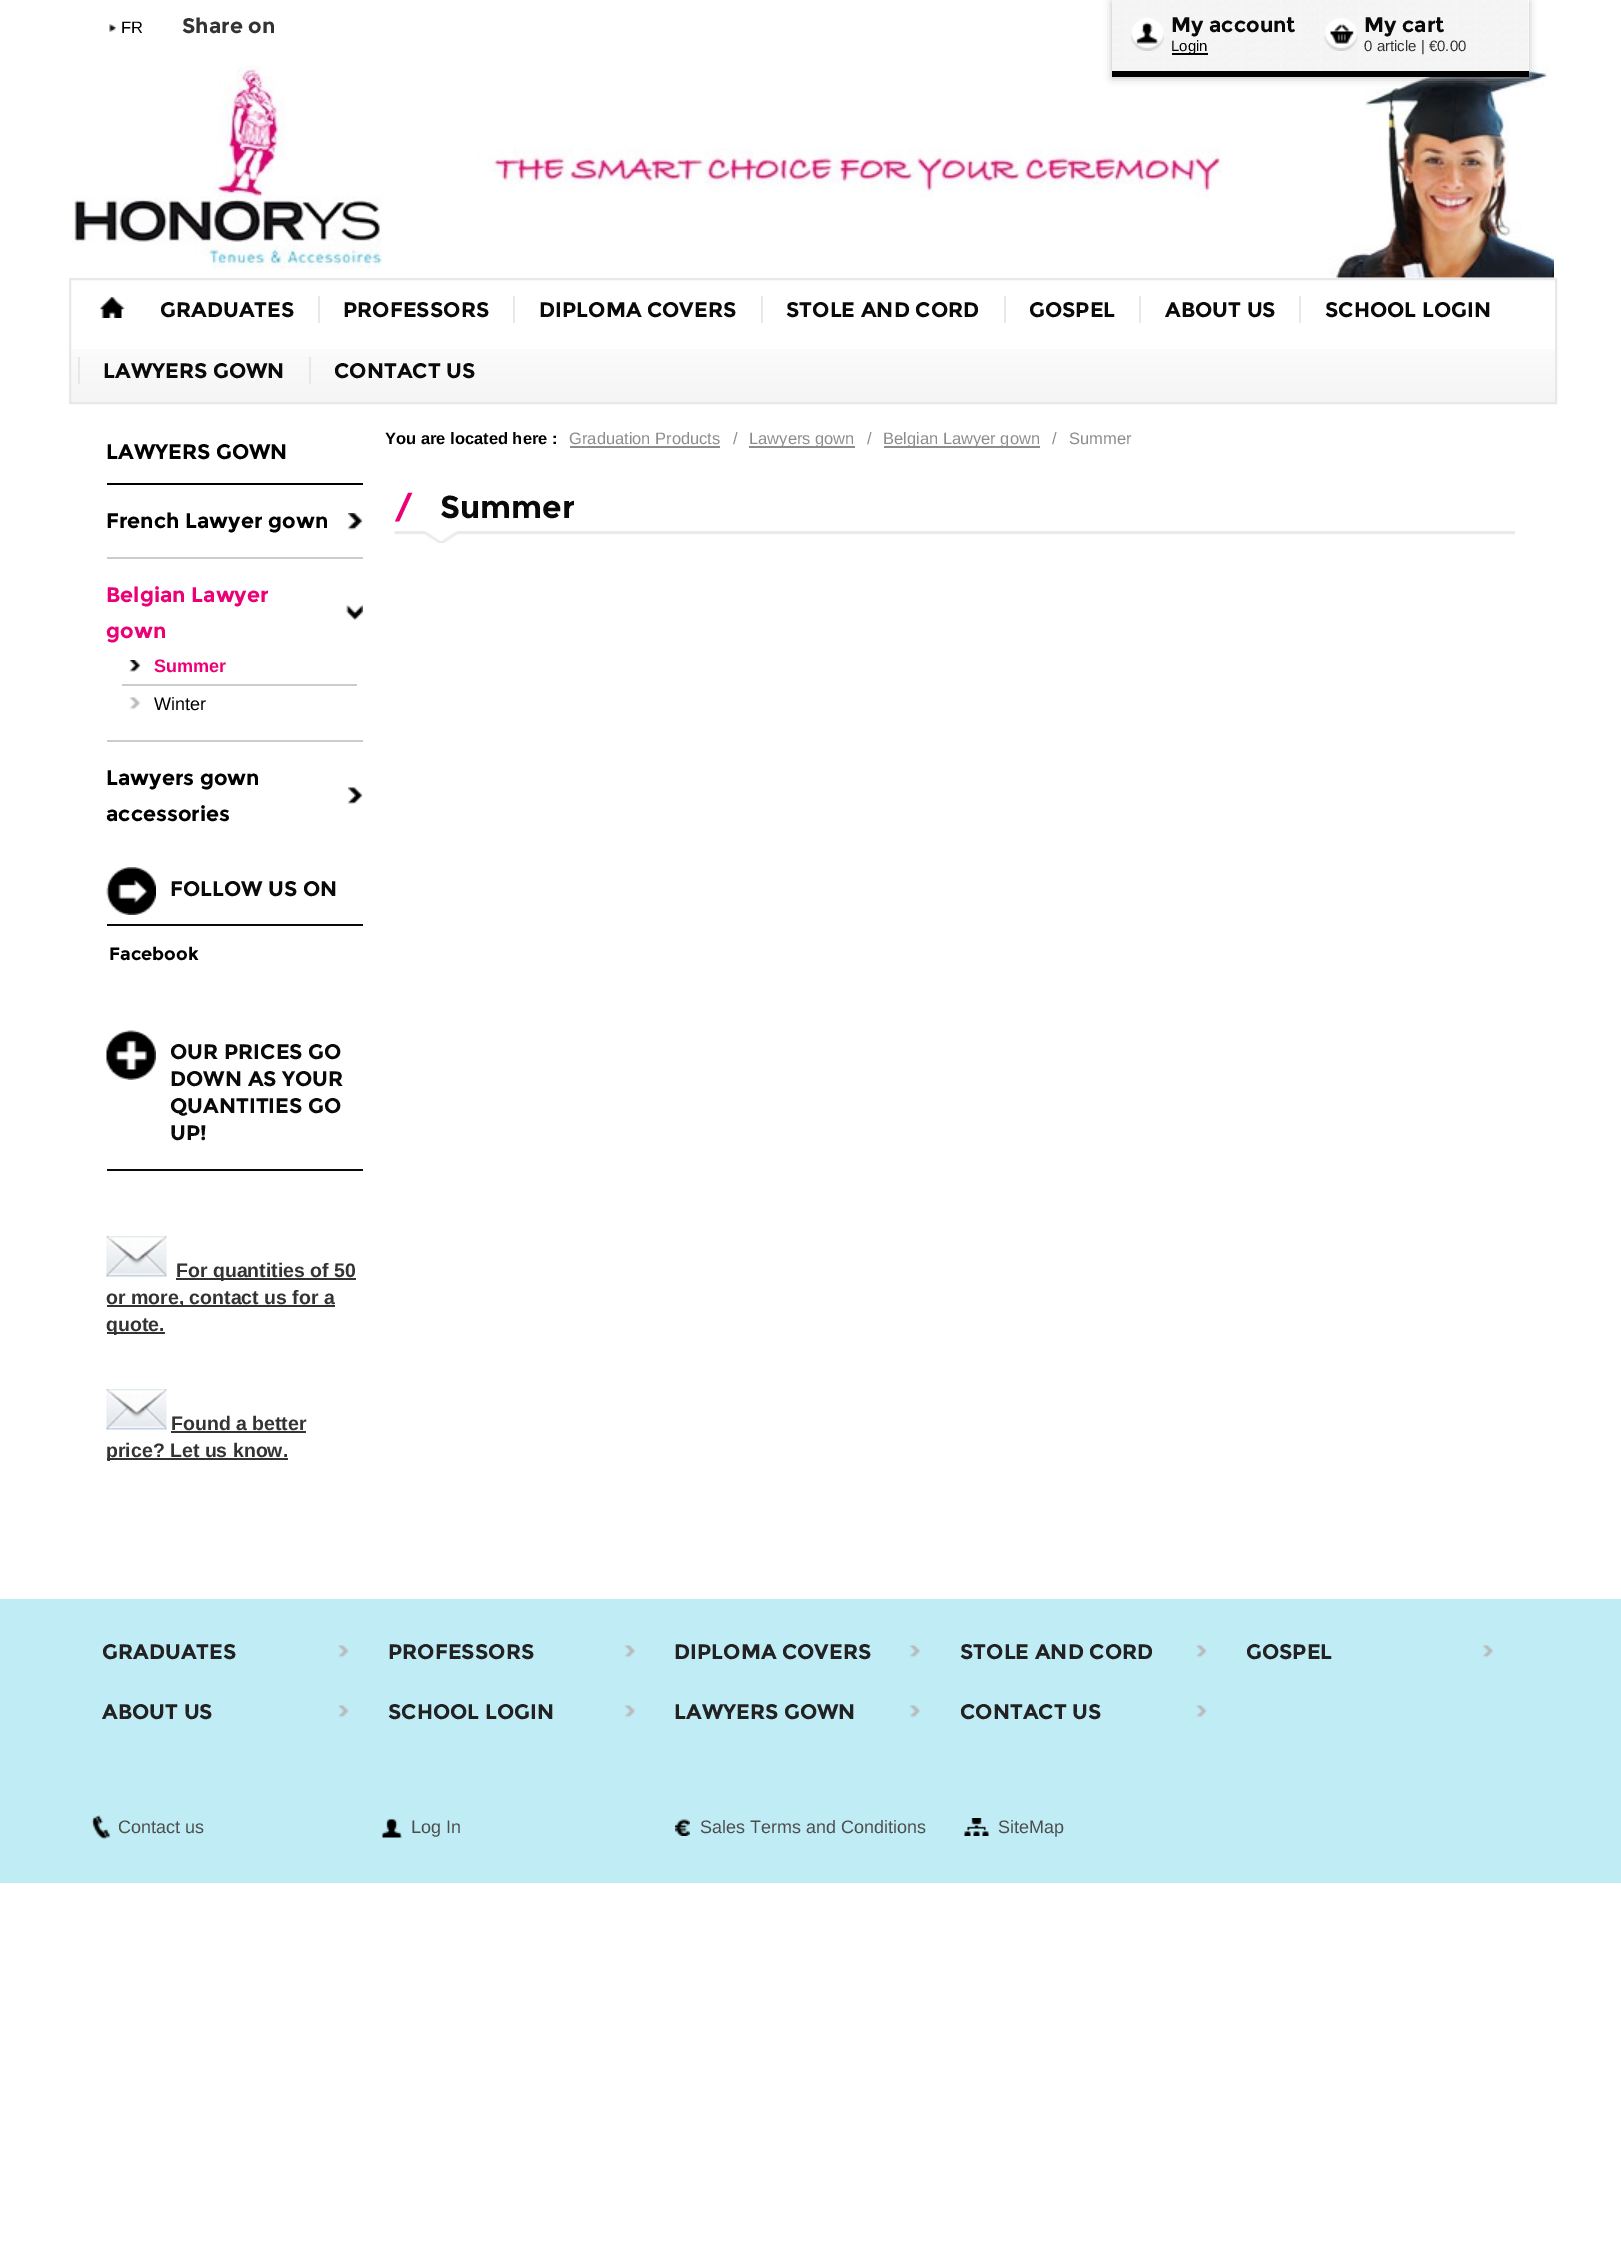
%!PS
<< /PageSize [1621 2268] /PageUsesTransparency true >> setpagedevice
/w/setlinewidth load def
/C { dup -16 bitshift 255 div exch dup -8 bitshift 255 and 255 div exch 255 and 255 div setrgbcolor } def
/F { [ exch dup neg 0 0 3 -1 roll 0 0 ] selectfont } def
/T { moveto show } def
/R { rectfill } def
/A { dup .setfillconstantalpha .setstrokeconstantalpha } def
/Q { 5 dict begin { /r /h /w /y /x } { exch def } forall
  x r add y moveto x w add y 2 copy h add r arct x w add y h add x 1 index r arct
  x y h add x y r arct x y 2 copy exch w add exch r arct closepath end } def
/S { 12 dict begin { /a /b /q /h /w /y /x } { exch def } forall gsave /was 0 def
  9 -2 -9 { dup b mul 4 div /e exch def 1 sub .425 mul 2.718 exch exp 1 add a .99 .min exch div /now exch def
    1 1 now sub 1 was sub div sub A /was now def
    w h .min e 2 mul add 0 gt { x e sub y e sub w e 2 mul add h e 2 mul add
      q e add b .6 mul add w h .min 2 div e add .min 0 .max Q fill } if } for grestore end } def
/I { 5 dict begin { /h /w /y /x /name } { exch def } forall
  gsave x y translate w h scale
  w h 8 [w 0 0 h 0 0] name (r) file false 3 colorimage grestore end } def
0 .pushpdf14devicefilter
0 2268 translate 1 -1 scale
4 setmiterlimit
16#FFFFFF C
0 0 1621 2268 R
(1.rgb) 109 24 7 8 I
/LiberationSans-Regular 16.5 F
16#000000 C
(FR) 121 33 T
/Montserrat-Bold 21 F
16#333333 C
(Share on) 182 33 T
(5.rgb) 71 65 1483 213 I
16#BCBCBC C
1112 2 417 76 0 4 1 S
16#FFFFFF C
1112 0 417 71 R
(2.rgb) 1112 0 417 71 I
16#000000 C
1112 71 417 6 R
(3.rgb) 1131 18 33 33 I
16#0A0A0A C
(My account) 1171 32 T
16#000000 C
1172 53 36 2 R
/LiberationSans-Regular 15 F
(Login) 1171 51 T
(4.rgb) 1324 18 34 33 I
/Montserrat-Bold 21 F
16#0A0A0A C
(My cart) 1364 32 T
/LiberationSans-Regular 15 F
16#333333 C
(0 article | €0.00) 1364 51 T
(6.rgb) 71 349 1484 53 I
16#E8E8E8 C
2 w
70 279 1486 124 rectstroke
(7.rgb) 100 297 25 21 I
/Montserrat-Bold 21 F
16#0A0A0A C
(GRADUATES) 160 317 T
(PROFESSORS) 343 317 T
16#E8E8E8 C
318 296 2 27 R
16#0A0A0A C
(DIPLOMA COVERS) 539 317 T
16#E8E8E8 C
513 296 2 27 R
16#0A0A0A C
(STOLE AND CORD) 786 317 T
16#E8E8E8 C
761 296 2 27 R
16#0A0A0A C
(GOSPEL) 1029 317 T
16#E8E8E8 C
1004 296 2 27 R
16#0A0A0A C
(ABOUT US) 1165 317 T
16#E8E8E8 C
1139 296 2 27 R
16#0A0A0A C
(SCHOOL LOGIN) 1325 317 T
16#E8E8E8 C
1299 296 2 27 R
16#0A0A0A C
(LAWYERS GOWN) 103 378 T
16#E8E8E8 C
78 357 2 27 R
16#0A0A0A C
(CONTACT US) 334 378 T
16#E8E8E8 C
309 357 2 27 R
16#000000 C
(LAWYERS GOWN) 106 459 T
107 483 256 2 R
(8.rgb) 348 513 15 17 I
(French Lawyer gown) 106 528 T
16#CCCCCC C
107 557 256 2 R
(9.rgb) 346 604 17 16 I
16#EB0076 C
(Belgian Lawyer) 106 602 T
(gown) 106 638 T
(10.rgb) 129 660 12 12 I
/LiberationSans-Bold 18 F
(Summer) 154 672 T
(11.rgb) 129 697 12 13 I
16#CCCCCC C
122 684 235 2 R
/LiberationSans-Regular 18 F
16#000000 C
(Winter) 154 710 T
16#CCCCCC C
107 740 256 2 R
(12.rgb) 348 787 15 17 I
/Montserrat-Bold 21 F
16#000000 C
(Lawyers gown) 106 785 T
(accessories) 106 821 T
(13.rgb) 106 867 50 48 I
16#0A0A0A C
107 924 256 2 R
(FOLLOW US ON) 170 896 T
/Montserrat-Bold 18 F
16#000000 C
(Facebook) 109 960 T
(14.rgb) 106 1030 50 50 I
16#0A0A0A C
107 1169 256 2 R
/Montserrat-Bold 21 F
(OUR PRICES GO) 170 1059 T
(DOWN AS YOUR) 170 1086 T
(QUANTITIES GO) 170 1113 T
(UP!) 170 1140 T
(15.rgb) 106 1236 61 41 I
16#333333 C
176 1278 180 2 R
/LiberationSans-Bold 19.5 F
(For quantities of 50) 176 1277 T
107 1305 228 2 R
(or more, contact us for a) 106 1304 T
107 1332 58 2 R
(quote.) 106 1331 T
(15.rgb) 106 1389 61 41 I
(Found a better) 171 1430 T
171 1431 135 2 R
107 1458 181 2 R
(price? Let us know.) 106 1457 T
/LiberationSans-Bold 16.5 F
16#000000 C
(You are located here :) 385 444 T
/LiberationSans-Regular 16.5 F
16#8C8C8C C
(Graduation Products) 569 444 T
570 446 150 2 R
(/) 733 444 T
749 446 106 2 R
(Lawyers gown) 749 444 T
(/) 867 444 T
884 446 156 2 R
(Belgian Lawyer gown) 883 444 T
(/) 1052 444 T
(Summer) 1069 444 T
(16.rgb) 394 531 1121 12 I
/Montserrat-Bold 31.5 F
16#EB0076 C
(/) 394 518 T
16#0A0A0A C
(Summer) 440 518 T
16#BFECF5 C
0 1599 1621 284 R
(17.rgb) 338 1645 11 13 I
/Montserrat-Bold 21 F
16#222222 C
(GRADUATES) 102 1659 T
(18.rgb) 624 1645 11 13 I
(PROFESSORS) 388 1659 T
(18.rgb) 909 1645 11 13 I
(DIPLOMA COVERS) 674 1659 T
(19.rgb) 1196 1645 11 13 I
(STOLE AND CORD) 960 1659 T
(20.rgb) 1482 1645 11 13 I
(GOSPEL) 1246 1659 T
(17.rgb) 338 1705 11 13 I
(ABOUT US) 102 1719 T
(18.rgb) 624 1705 11 13 I
(SCHOOL LOGIN) 388 1719 T
(18.rgb) 909 1705 11 13 I
(LAWYERS GOWN) 674 1719 T
(19.rgb) 1196 1705 11 13 I
(CONTACT US) 960 1719 T
(21.rgb) 91 1815 20 24 I
/LiberationSans-Regular 18 F
16#4D4D4D C
(Contact us) 118 1833 T
(22.rgb) 382 1818 20 20 I
(Log In) 411 1833 T
(23.rgb) 675 1819 15 17 I
(Sales Terms and Conditions) 700 1833 T
(24.rgb) 964 1818 25 18 I
(SiteMap) 998 1833 T
.poppdf14devicefilter showpage
